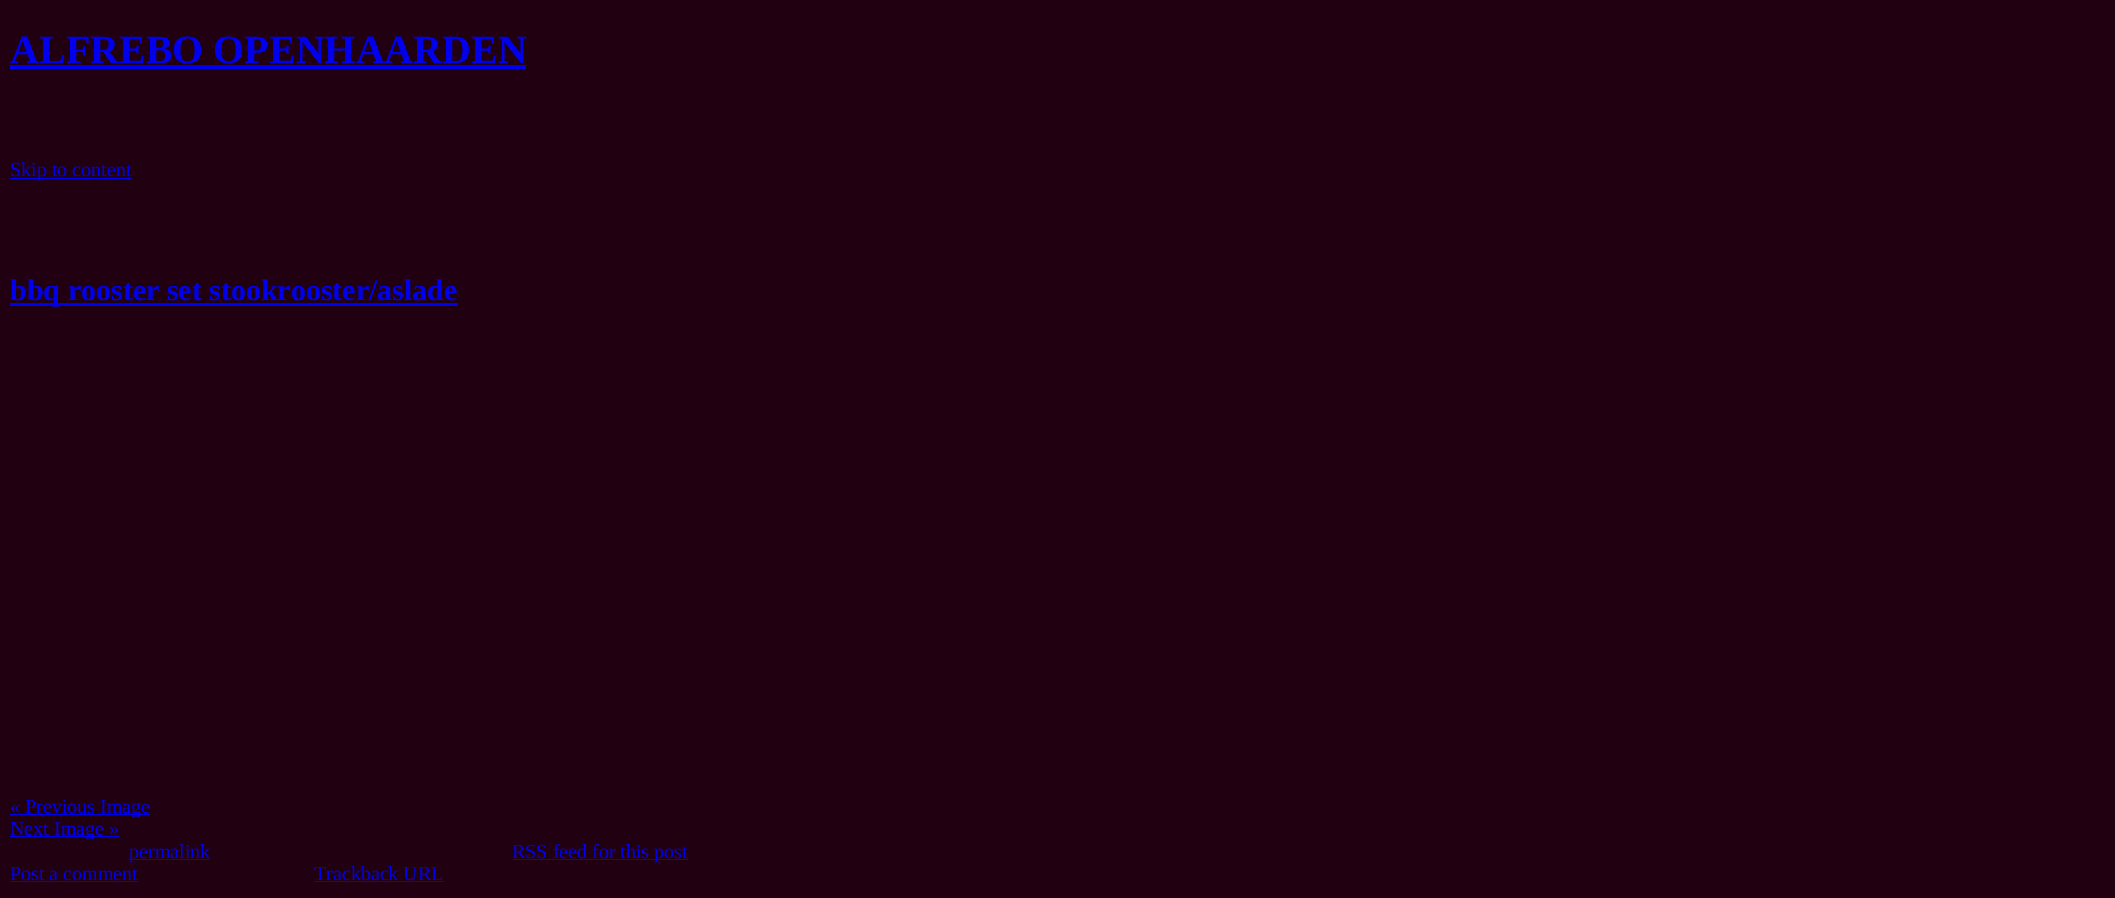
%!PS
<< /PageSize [2115 898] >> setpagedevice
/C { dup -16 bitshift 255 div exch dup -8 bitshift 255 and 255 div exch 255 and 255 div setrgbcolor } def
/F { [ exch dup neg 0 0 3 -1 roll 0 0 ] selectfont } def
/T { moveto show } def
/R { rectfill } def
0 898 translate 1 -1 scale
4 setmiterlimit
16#210011 C
0 0 2115 898 R
/LiberationSerif-Bold 40 F
16#0000EE C
(ALFREBO OPENHAARDEN) 10 63 T
10 65 516 4 R
10 178 121 1 R
/LiberationSerif-Regular 20 F
(Skip to content) 10 176 T
10 303 448 3 R
/LiberationSerif-Bold 30 F
(bbq rooster set stookrooster/aslade) 10 300 T
10 814 140 1 R
/LiberationSerif-Regular 20 F
(« Previous Image) 10 813 T
10 836 109 1 R
(Next Image ») 10 835 T
129 859 81 1 R
(permalink) 129 858 T
513 859 175 1 R
(RSS feed for this post) 512 858 T
(Post a comment) 10 880 T
10 881 128 1 R
(Trackback URL) 314 880 T
314 881 130 1 R
showpage
